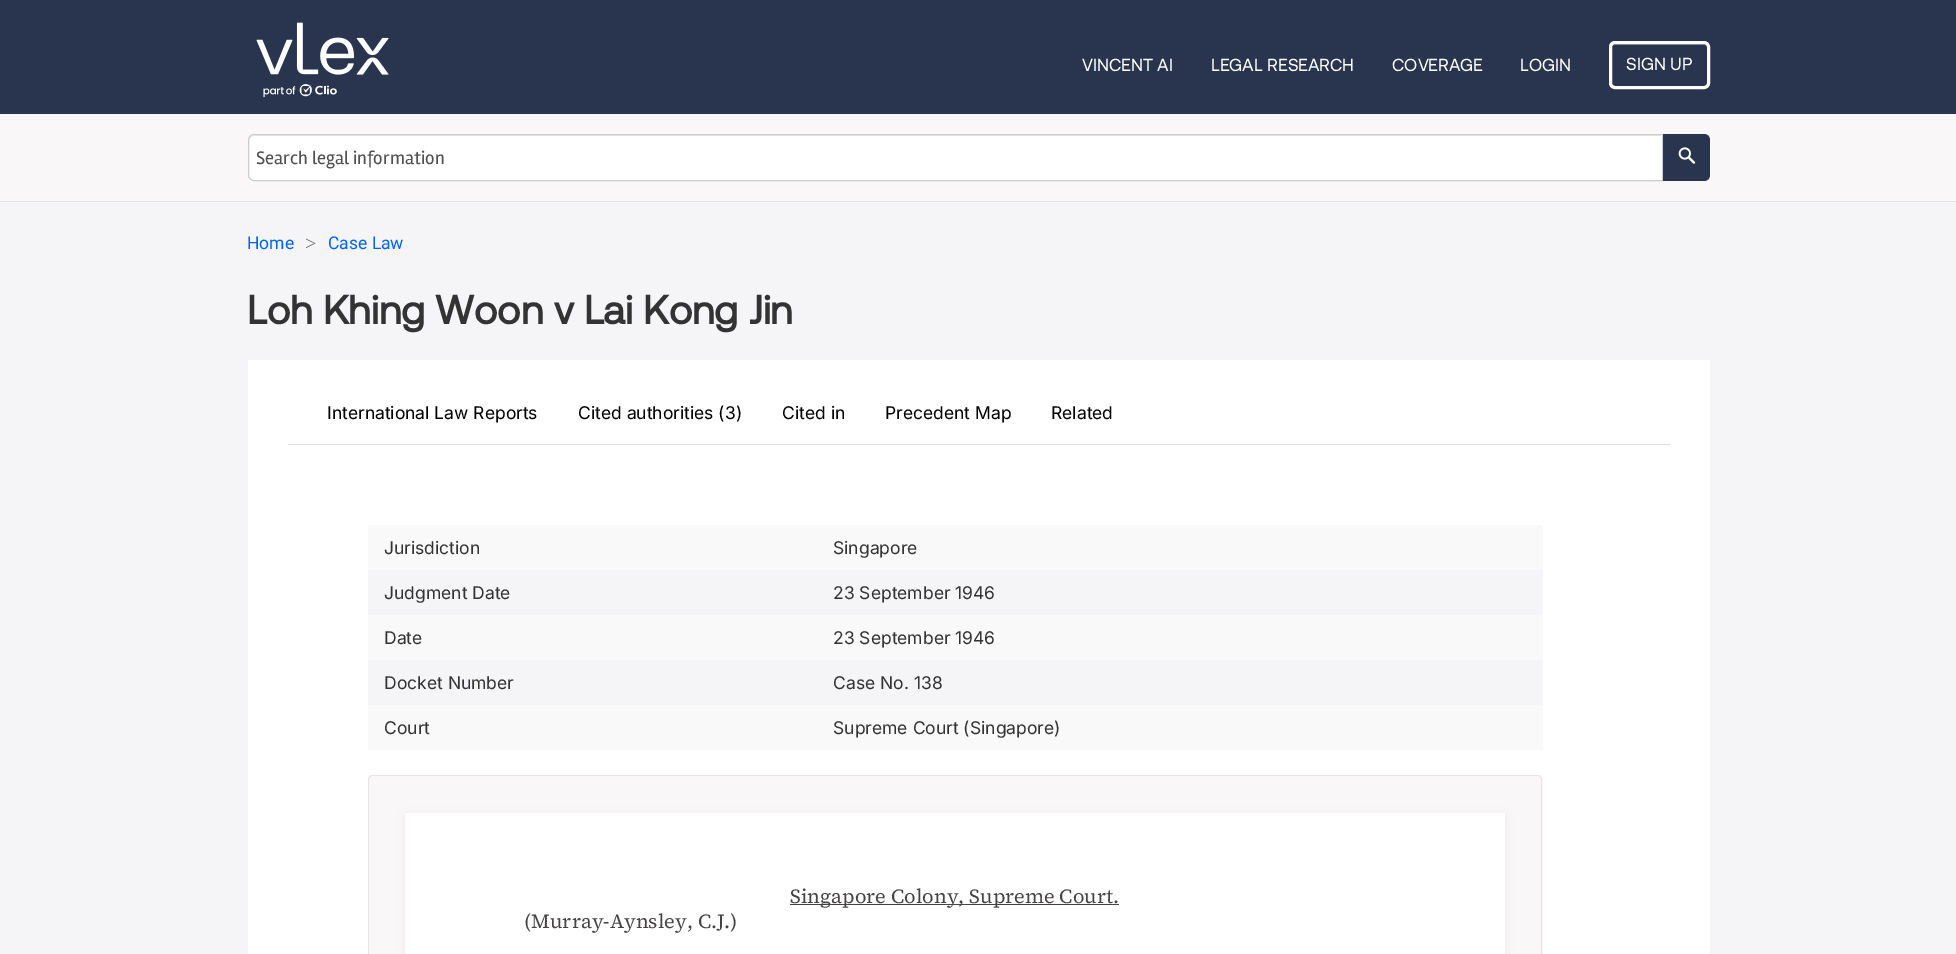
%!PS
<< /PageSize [1956 954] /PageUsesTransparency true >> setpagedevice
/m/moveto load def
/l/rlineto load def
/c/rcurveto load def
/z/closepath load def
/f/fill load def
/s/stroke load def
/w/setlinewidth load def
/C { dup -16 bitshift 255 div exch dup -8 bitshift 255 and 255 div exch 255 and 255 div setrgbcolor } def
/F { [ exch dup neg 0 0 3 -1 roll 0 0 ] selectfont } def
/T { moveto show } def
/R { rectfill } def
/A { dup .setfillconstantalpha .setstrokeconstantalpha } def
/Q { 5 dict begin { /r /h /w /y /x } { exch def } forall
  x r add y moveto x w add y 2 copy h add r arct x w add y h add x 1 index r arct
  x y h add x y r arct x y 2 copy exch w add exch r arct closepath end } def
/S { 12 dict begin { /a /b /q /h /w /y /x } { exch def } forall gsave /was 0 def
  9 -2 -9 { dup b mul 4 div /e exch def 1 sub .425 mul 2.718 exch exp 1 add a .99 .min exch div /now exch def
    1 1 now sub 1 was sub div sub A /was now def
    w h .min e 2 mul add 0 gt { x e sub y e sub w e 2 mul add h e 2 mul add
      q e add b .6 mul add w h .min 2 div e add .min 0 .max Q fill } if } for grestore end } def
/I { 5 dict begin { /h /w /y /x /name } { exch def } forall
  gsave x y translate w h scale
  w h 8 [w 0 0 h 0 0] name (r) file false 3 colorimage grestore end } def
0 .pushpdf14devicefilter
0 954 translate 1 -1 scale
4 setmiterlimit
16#F5F5F7 C
0 0 1956 954 R
16#29354E C
0 0 1956 114 R
(1.rgb) 256 22 133 76 I
/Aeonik-Regular 17.5 F
16#FFFFFF C
(VINCENT AI) 1082 71 T
(LEGAL RESEARCH) 1211 71 T
(COVERAGE) 1392 71 T
(LOGIN) 1520 71 T
16#545D71 C
1615 45 m 89 0 l 2 0 4 2 4 4 c 0 -9 -14 -5 -19 -5 c -59 0 l -5 0 -19 -4 -19 5 c 0 -2 2 -4 4 -4 c z f
16#FFFFFF C
3 w
1610.5 42.5 98 45 4.5 Q s
(SIGN UP) 1626 70 T
16#F9F7F7 C
0 114 1956 89 R
16#E1E1E1 C
0 201 1956 1 R
16#FFFFFF C
254 134 m 1409 0 l 0 47 l -1409 0 l -3.5 0 -6 -2.5 -6 -6 c 0 -35 l 0 -3.5 2.5 -6 6 -6 c z f
16#ECECEC C
254 136 m 1407 0 l 0 -1 l -1407 0 l -3 0 -5 3 -5 6 c 0 -3 2 -5 5 -5 c z f
16#CCCCCC C
1 w
254 134.5 m 1408.5 0 l 0 46 l -1408.5 0 l -3 0 -5.5 -2.5 -5.5 -5.5 c 0 -35 l 0 -3 2.5 -5.5 5.5 -5.5 c z s
/Rambla-Regular 18.75 F
16#505050 C
(Search legal information) 256 164 T
16#29354E C
1663 134 m 41 0 l 3.5 0 6 2.5 6 6 c 0 35 l 0 3.5 -2.5 6 -6 6 c -41 0 l z f
(2.rgb) 1678 147 18 17 I
/Roboto-Regular 17.5 F
16#0161FF C
(Home) 247 249 T
/LiberationSerif-Regular 20 F
16#71717A C
(>) 305 250 T
/Roboto-Regular 17.5 F
16#0161FF C
(Case Law) 328 249 T
/Aeonik-Bold 40 F
16#333333 C
(Loh Khing Woon v Lai Kong Jin) 247 324 T
16#FFFFFF C
248 360 1462 594 R
16#DDDDDD C
288 444 1382 1 R
/Inter-Regular 17.5 F
16#000000 C
(International Law Reports) 327 419 T
(Cited authorities \(3\)) 578 419 T
(Cited in) 782 419 T
(Precedent Map) 885 419 T
(Related) 1051 419 T
16#F9F9F9 C
368 525 1175 45 R
16#333333 C
(Jurisdiction) 384 554 T
(Singapore) 833 554 T
16#F5F5F7 C
368 570 1175 45 R
16#333333 C
(Judgment Date) 384 599 T
(23 September 1946) 833 599 T
16#F9F9F9 C
368 615 1175 45 R
16#333333 C
(Date) 384 644 T
(23 September 1946) 833 644 T
16#F5F5F7 C
368 660 1175 45 R
16#333333 C
(Docket Number) 384 689 T
(Case No. 138) 833 689 T
16#F9F9F9 C
368 705 1175 45 R
16#333333 C
(Court) 384 734 T
(Supreme Court \(Singapore\)) 833 734 T
16#F9F7F7 C
373 775 m 1165 0 l 3 0 5 2 5 5 c 0 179 l -1175 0 l 0 -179 l 0 -3 2 -5 5 -5 c z f
16#E7E4E4 C
372 775 m 1166 0 l 2 0 4 2 4 5 c 0 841 l -1174 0 l 0 -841 l 0 -3 2 -5 4 -5 c z 372 776 m 1166 0 l 2 0 3 2 3 4 c 0 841 l -1172 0 l 0 -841 l 0 -2 1 -4 3 -4 c z eofill
16#000000 C
405 815 1100 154 0 5 .06 S
16#FFFFFF C
405 813 1100 141 R
16#464343 C
790 904 329 1 R
/SourceSerif4-Regular 20 F
(Singapore Colony, Supreme Court.) 790 903 T
(\(Murray-Aynsley, C.J.\)) 524 928 T
.poppdf14devicefilter showpage
